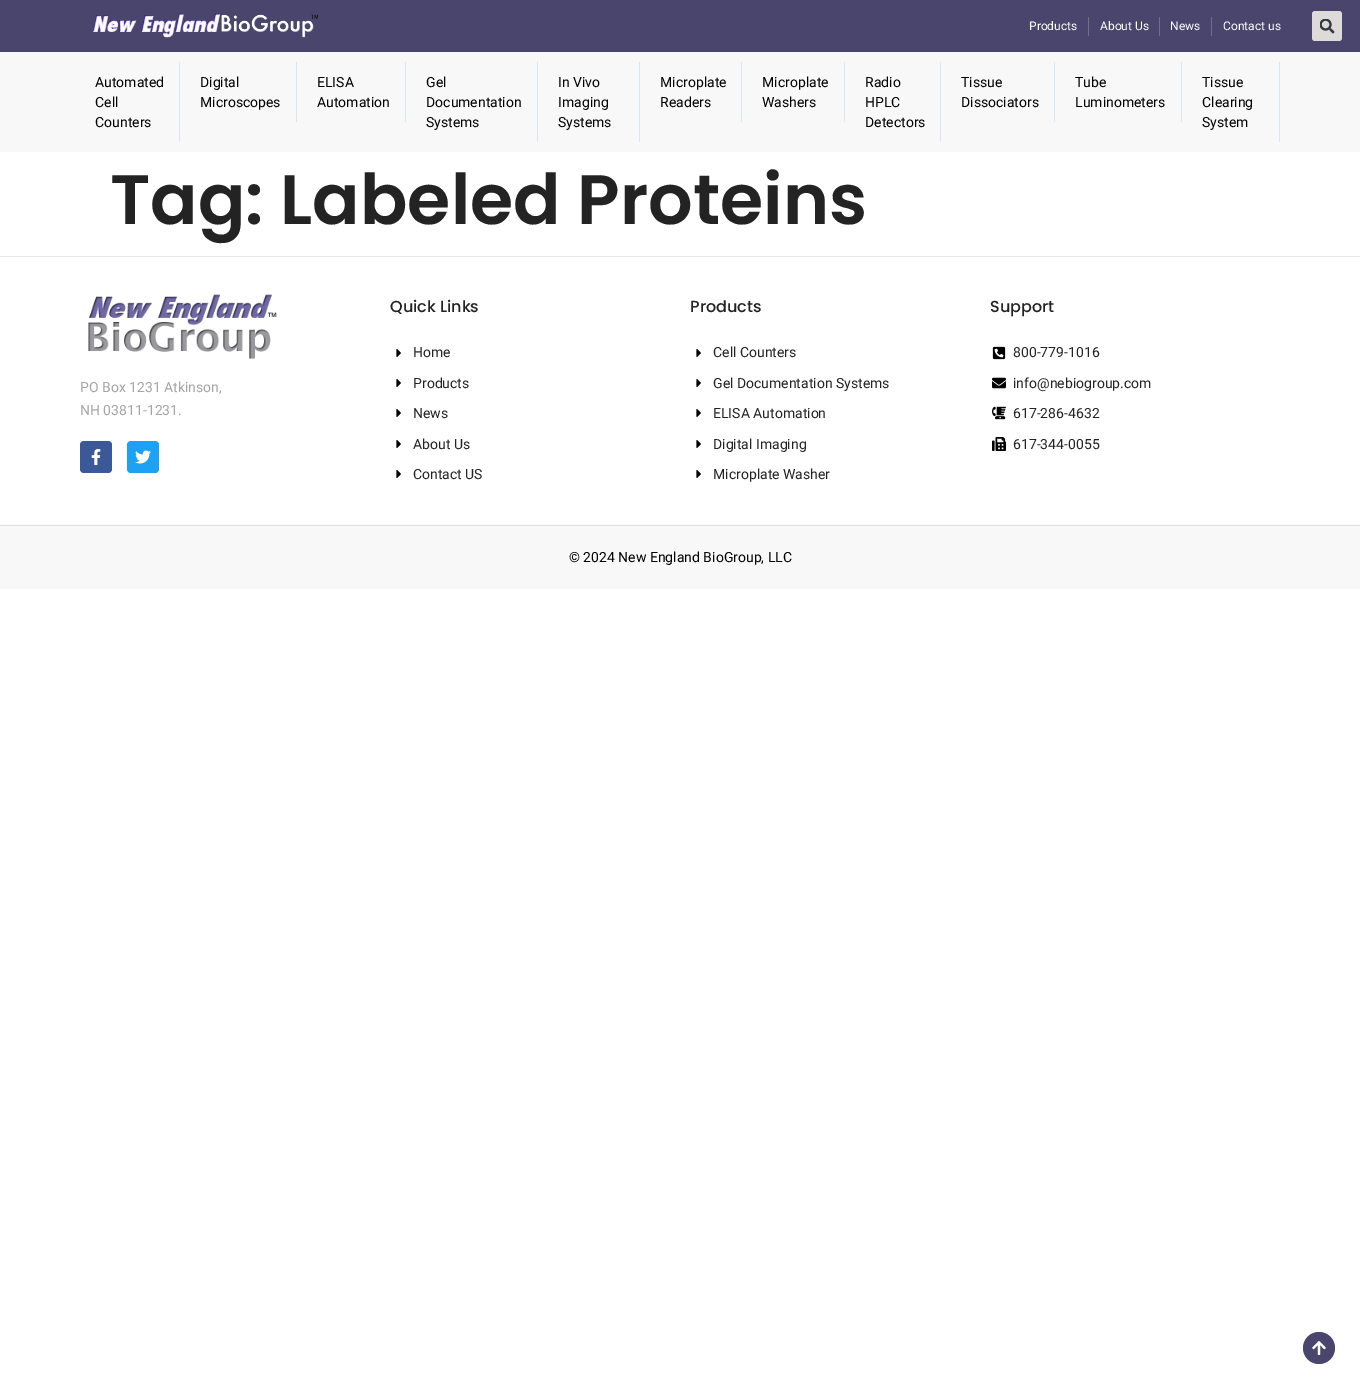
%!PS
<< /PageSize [1360 1395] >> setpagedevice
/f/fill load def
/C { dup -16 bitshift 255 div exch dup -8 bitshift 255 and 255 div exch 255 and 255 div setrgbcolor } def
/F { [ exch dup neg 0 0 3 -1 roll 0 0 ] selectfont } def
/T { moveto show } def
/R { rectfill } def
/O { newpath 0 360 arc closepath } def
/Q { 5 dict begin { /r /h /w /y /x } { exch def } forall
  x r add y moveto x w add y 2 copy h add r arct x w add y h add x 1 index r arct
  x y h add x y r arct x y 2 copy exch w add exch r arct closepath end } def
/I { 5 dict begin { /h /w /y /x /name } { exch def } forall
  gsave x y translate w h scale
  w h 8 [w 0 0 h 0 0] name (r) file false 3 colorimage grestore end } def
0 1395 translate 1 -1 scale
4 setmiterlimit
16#FFFFFF C
0 0 1360 1395 R
16#4A456C C
0 0 1360 52 R
(1.rgb) 93 13 225 25 I
/Roboto-Regular 12 F
16#FFFFFF C
(Products) 1029 30 T
16#726E8C C
1088 17 1 19 R
16#FFFFFF C
(About Us) 1100 30 T
16#726E8C C
1159 17 1 19 R
16#FFFFFF C
(News) 1170 30 T
16#726E8C C
1211 17 1 19 R
16#FFFFFF C
(Contact us) 1223 30 T
16#DFDADA C
1312 11 30 30 3 Q f
(2.rgb) 1320 19 15 15 I
16#F8F8F8 C
0 52 1360 100 R
16#DCE6F2 C
179 62 1 80 R
/Roboto-Regular 14 F
16#000000 C
(Automated) 95 87 T
(Cell) 95 107 T
(Counters) 95 127 T
16#DCE6F2 C
296 62 1 60 R
16#000000 C
(Digital) 200 87 T
(Microscopes) 200 107 T
16#DCE6F2 C
405 62 1 60 R
16#000000 C
(ELISA) 317 87 T
(Automation) 317 107 T
16#DCE6F2 C
537 62 1 80 R
16#000000 C
(Gel) 426 87 T
(Documentation) 426 107 T
(Systems) 426 127 T
16#DCE6F2 C
639 62 1 80 R
16#000000 C
(In Vivo) 558 87 T
(Imaging) 558 107 T
(Systems) 558 127 T
16#DCE6F2 C
741 62 1 60 R
16#000000 C
(Microplate) 660 87 T
(Readers) 660 107 T
16#DCE6F2 C
844 62 1 60 R
16#000000 C
(Microplate) 762 87 T
(Washers) 762 107 T
16#DCE6F2 C
940 62 1 80 R
16#000000 C
(Radio) 865 87 T
(HPLC) 865 107 T
(Detectors) 865 127 T
16#DCE6F2 C
1054 62 1 60 R
16#000000 C
(Tissue) 961 87 T
(Dissociators) 961 107 T
16#DCE6F2 C
1181 62 1 60 R
16#000000 C
(Tube) 1075 87 T
(Luminometers) 1075 107 T
16#DCE6F2 C
1279 62 1 80 R
16#000000 C
(Tissue) 1202 87 T
(Clearing) 1202 107 T
(System) 1202 127 T
/Poppins-SemiBold 70 F
16#232323 C
(Tag: Labeled Proteins) 110 224 T
16#E6E6E6 C
0 256 1360 1 R
(3.rgb) 88 294 189 65 I
/Roboto-Regular 14 F
16#A5A5A5 C
(PO Box 1231 Atkinson,) 80 392 T
(NH 03811-1231.) 80 415 T
16#3B5998 C
80 441 32 32 4 Q f
(4.rgb) 91 449 10 16 I
16#1DA1F2 C
127 441 32 32 4 Q f
(5.rgb) 135 450 16 14 I
/Poppins-Medium 16 F
16#232323 C
(Quick Links) 390 312 T
(6.rgb) 396 349 5 8 I
/Roboto-Regular 14 F
(Home) 413 357 T
(6.rgb) 396 379 5 8 I
(Products) 413 388 T
(6.rgb) 396 409 5 8 I
(News) 413 418 T
(6.rgb) 396 440 5 8 I
(About Us) 413 449 T
(6.rgb) 396 470 5 8 I
(Contact US) 413 479 T
/Poppins-Medium 16 F
(Products) 690 312 T
(6.rgb) 696 349 5 8 I
/Roboto-Regular 14 F
(Cell Counters) 713 357 T
(6.rgb) 696 379 5 8 I
(Gel Documentation Systems) 713 388 T
(6.rgb) 696 409 5 8 I
(ELISA Automation) 713 418 T
(6.rgb) 696 440 5 8 I
(Digital Imaging) 713 449 T
(6.rgb) 696 470 5 8 I
(Microplate Washer) 713 479 T
/Poppins-Medium 16 F
(Support) 990 312 T
(7.rgb) 992 346 14 14 I
/Roboto-Regular 14 F
(800-779-1016) 1013 357 T
(8.rgb) 992 377 14 12 I
(info@nebiogroup.com) 1013 388 T
(9.rgb) 992 406 14 14 I
(617-286-4632) 1013 418 T
(10.rgb) 992 437 14 14 I
(617-344-0055) 1013 449 T
16#F8F8F8 C
0 526 1360 63 R
16#DFDFDF C
0 525 1360 1 R
16#000000 C
(© 2024 New England BioGroup, LLC) 569 562 T
16#4A456C C
1319 1348 16 O f
(11.rgb) 1312 1341 14 14 I
showpage
